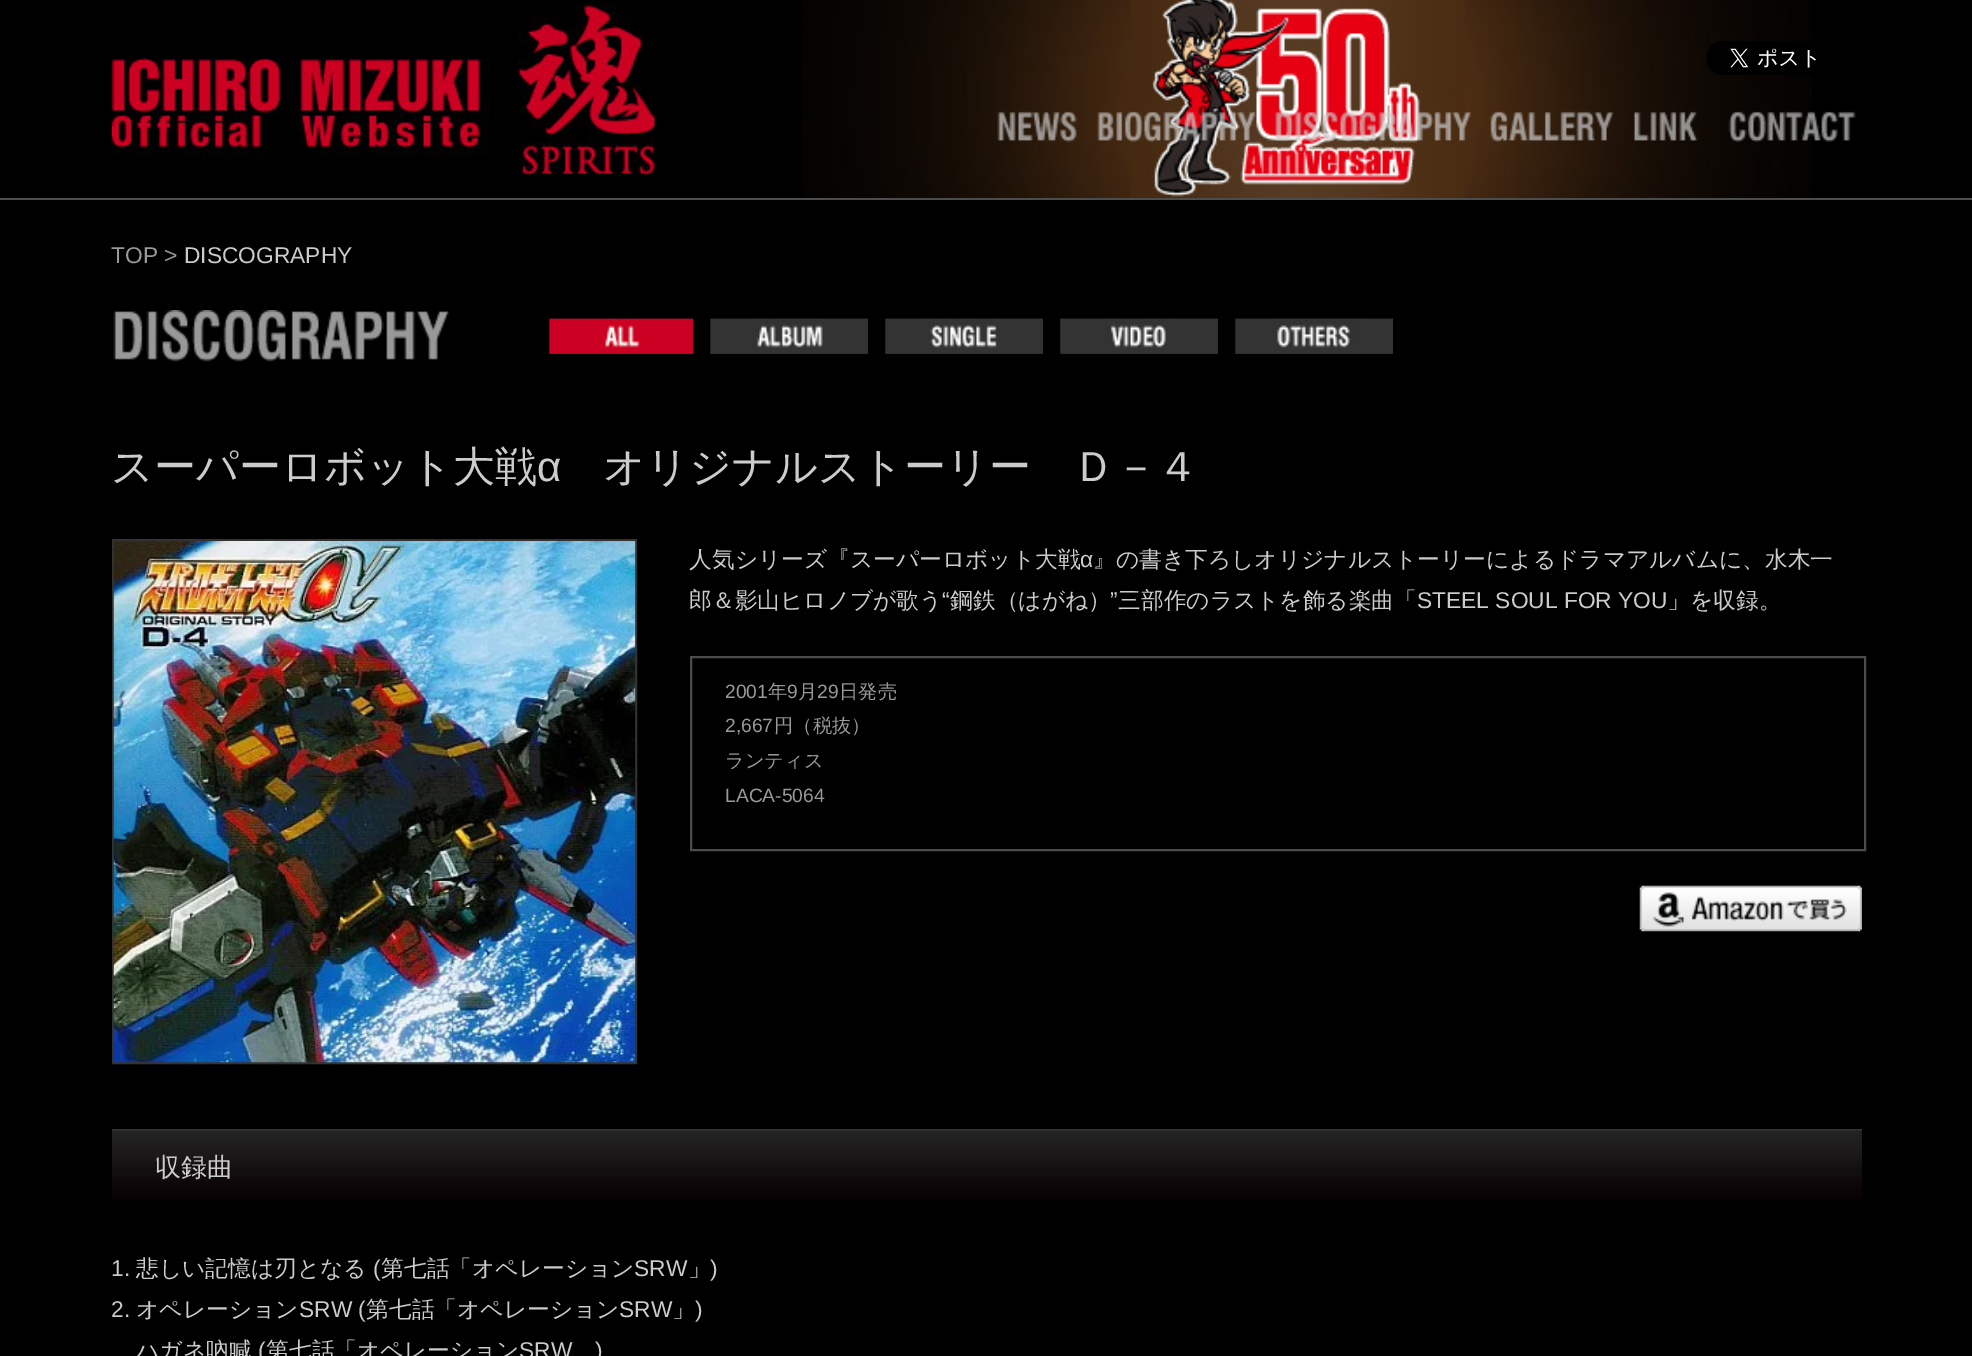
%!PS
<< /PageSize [1972 1356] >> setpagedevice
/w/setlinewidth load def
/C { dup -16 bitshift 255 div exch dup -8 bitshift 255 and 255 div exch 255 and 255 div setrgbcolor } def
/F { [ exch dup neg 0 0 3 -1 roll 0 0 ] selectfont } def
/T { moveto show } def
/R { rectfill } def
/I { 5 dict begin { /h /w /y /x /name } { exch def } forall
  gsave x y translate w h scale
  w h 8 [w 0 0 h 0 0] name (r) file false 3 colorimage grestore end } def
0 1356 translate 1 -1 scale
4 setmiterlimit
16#000000 C
0 0 1972 1356 R
(1.rgb) 802 0 1010 198 I
16#4C4C4C C
0 198 1972 2 R
(2.rgb) 112 2 543 174 I
(3.rgb) 1706 41 110 34 I
(4.rgb) 997 111 80 32 I
(5.rgb) 1097 111 159 31 I
(6.rgb) 1275 111 197 31 I
(7.rgb) 1490 111 124 31 I
(8.rgb) 1634 111 64 30 I
(9.rgb) 1728 111 128 31 I
/LiberationSans-Regular 22.75 F
16#999999 C
(TOP >) 111 263 T
16#CCCCCC C
(DISCOGRAPHY) 184 263 T
(10.rgb) 113 310 336 52 I
(11.rgb) 549 318 144 36 I
(12.rgb) 549 318 144 36 I
(13.rgb) 710 318 158 36 I
(14.rgb) 710 318 158 36 I
(15.rgb) 885 318 158 36 I
(16.rgb) 885 318 158 36 I
(17.rgb) 1060 318 158 36 I
(18.rgb) 1060 318 158 36 I
(19.rgb) 1235 318 158 36 I
(20.rgb) 1235 318 158 36 I
/WenQuanYiZenHei-Medium 42 F
(スーパーロボット大戦) 111 481 T
/LiberationSans-Regular 42 F
(α) 537 481 T
/WenQuanYiZenHei-Medium 42 F
(オリジナルストーリー　Ｄ－４) 603 481 T
16#333333 C
2 w
113 540 523 523 rectstroke
(21.rgb) 113 541 523 522 I
/WenQuanYiZenHei-Medium 22.75 F
16#CCCCCC C
(人気シリーズ『スーパーロボット大戦) 689 567 T
/LiberationSans-Regular 22.75 F
(α) 1080 567 T
/WenQuanYiZenHei-Medium 22.75 F
(』の書き下ろしオリジナルストーリーによるドラマアルバムに、水木一) 1093 567 T
(郎＆影山ヒロノブが歌う) 689 608 T
/LiberationSans-Regular 22.75 F
(“) 942 608 T
/WenQuanYiZenHei-Medium 22.75 F
(鋼鉄（はがね）) 950 608 T
/LiberationSans-Regular 22.75 F
(”) 1110 608 T
/WenQuanYiZenHei-Medium 22.75 F
(三部作のラストを飾る楽曲「) 1118 608 T
/LiberationSans-Regular 22.75 F
(STEEL SOUL FOR YOU) 1417 608 T
/WenQuanYiZenHei-Medium 22.75 F
(」を収録。) 1667 608 T
16#4C4C4C C
691 657 1174 193 rectstroke
/LiberationSans-Regular 19.25 F
16#999999 C
(2001) 725 698 T
/WenQuanYiZenHei-Medium 19.25 F
(年) 768 698 T
/LiberationSans-Regular 19.25 F
(9) 787 698 T
/WenQuanYiZenHei-Medium 19.25 F
(月) 798 698 T
/LiberationSans-Regular 19.25 F
(29) 817 698 T
/WenQuanYiZenHei-Medium 19.25 F
(日発売) 839 698 T
/LiberationSans-Regular 19.25 F
(2,667) 725 732 T
/WenQuanYiZenHei-Medium 19.25 F
(円（税抜）) 774 732 T
(ランティス) 725 767 T
/LiberationSans-Regular 19.25 F
(LACA-5064) 725 802 T
(22.rgb) 1639 885 223 47 I
(23.rgb) 112 1129 1750 72 I
/WenQuanYiZenHei-Medium 26 F
16#CCCCCC C
(収録曲) 155 1176 T
/LiberationSans-Regular 22.75 F
(1.) 111 1276 T
/WenQuanYiZenHei-Medium 22.75 F
(悲しい記憶は刃となる) 136 1276 T
/LiberationSans-Regular 22.75 F
(\() 373 1276 T
/WenQuanYiZenHei-Medium 22.75 F
(第七話「オペレーション) 381 1276 T
/LiberationSans-Regular 22.75 F
(SRW) 634 1276 T
/WenQuanYiZenHei-Medium 22.75 F
(」) 688 1276 T
/LiberationSans-Regular 22.75 F
(\)) 710 1276 T
(2.) 111 1317 T
/WenQuanYiZenHei-Medium 22.75 F
(オペレーション) 136 1317 T
/LiberationSans-Regular 22.75 F
(SRW \() 299 1317 T
/WenQuanYiZenHei-Medium 22.75 F
(第七話「オペレーション) 366 1317 T
/LiberationSans-Regular 22.75 F
(SRW) 619 1317 T
/WenQuanYiZenHei-Medium 22.75 F
(」) 672 1317 T
/LiberationSans-Regular 22.75 F
(\)) 695 1317 T
/WenQuanYiZenHei-Medium 22.75 F
(ハガネ吶喊) 136 1358 T
/LiberationSans-Regular 22.75 F
(\() 258 1358 T
/WenQuanYiZenHei-Medium 22.75 F
(第七話「オペレーション) 266 1358 T
/LiberationSans-Regular 22.75 F
(SRW) 519 1358 T
(\)) 595 1358 T
showpage
